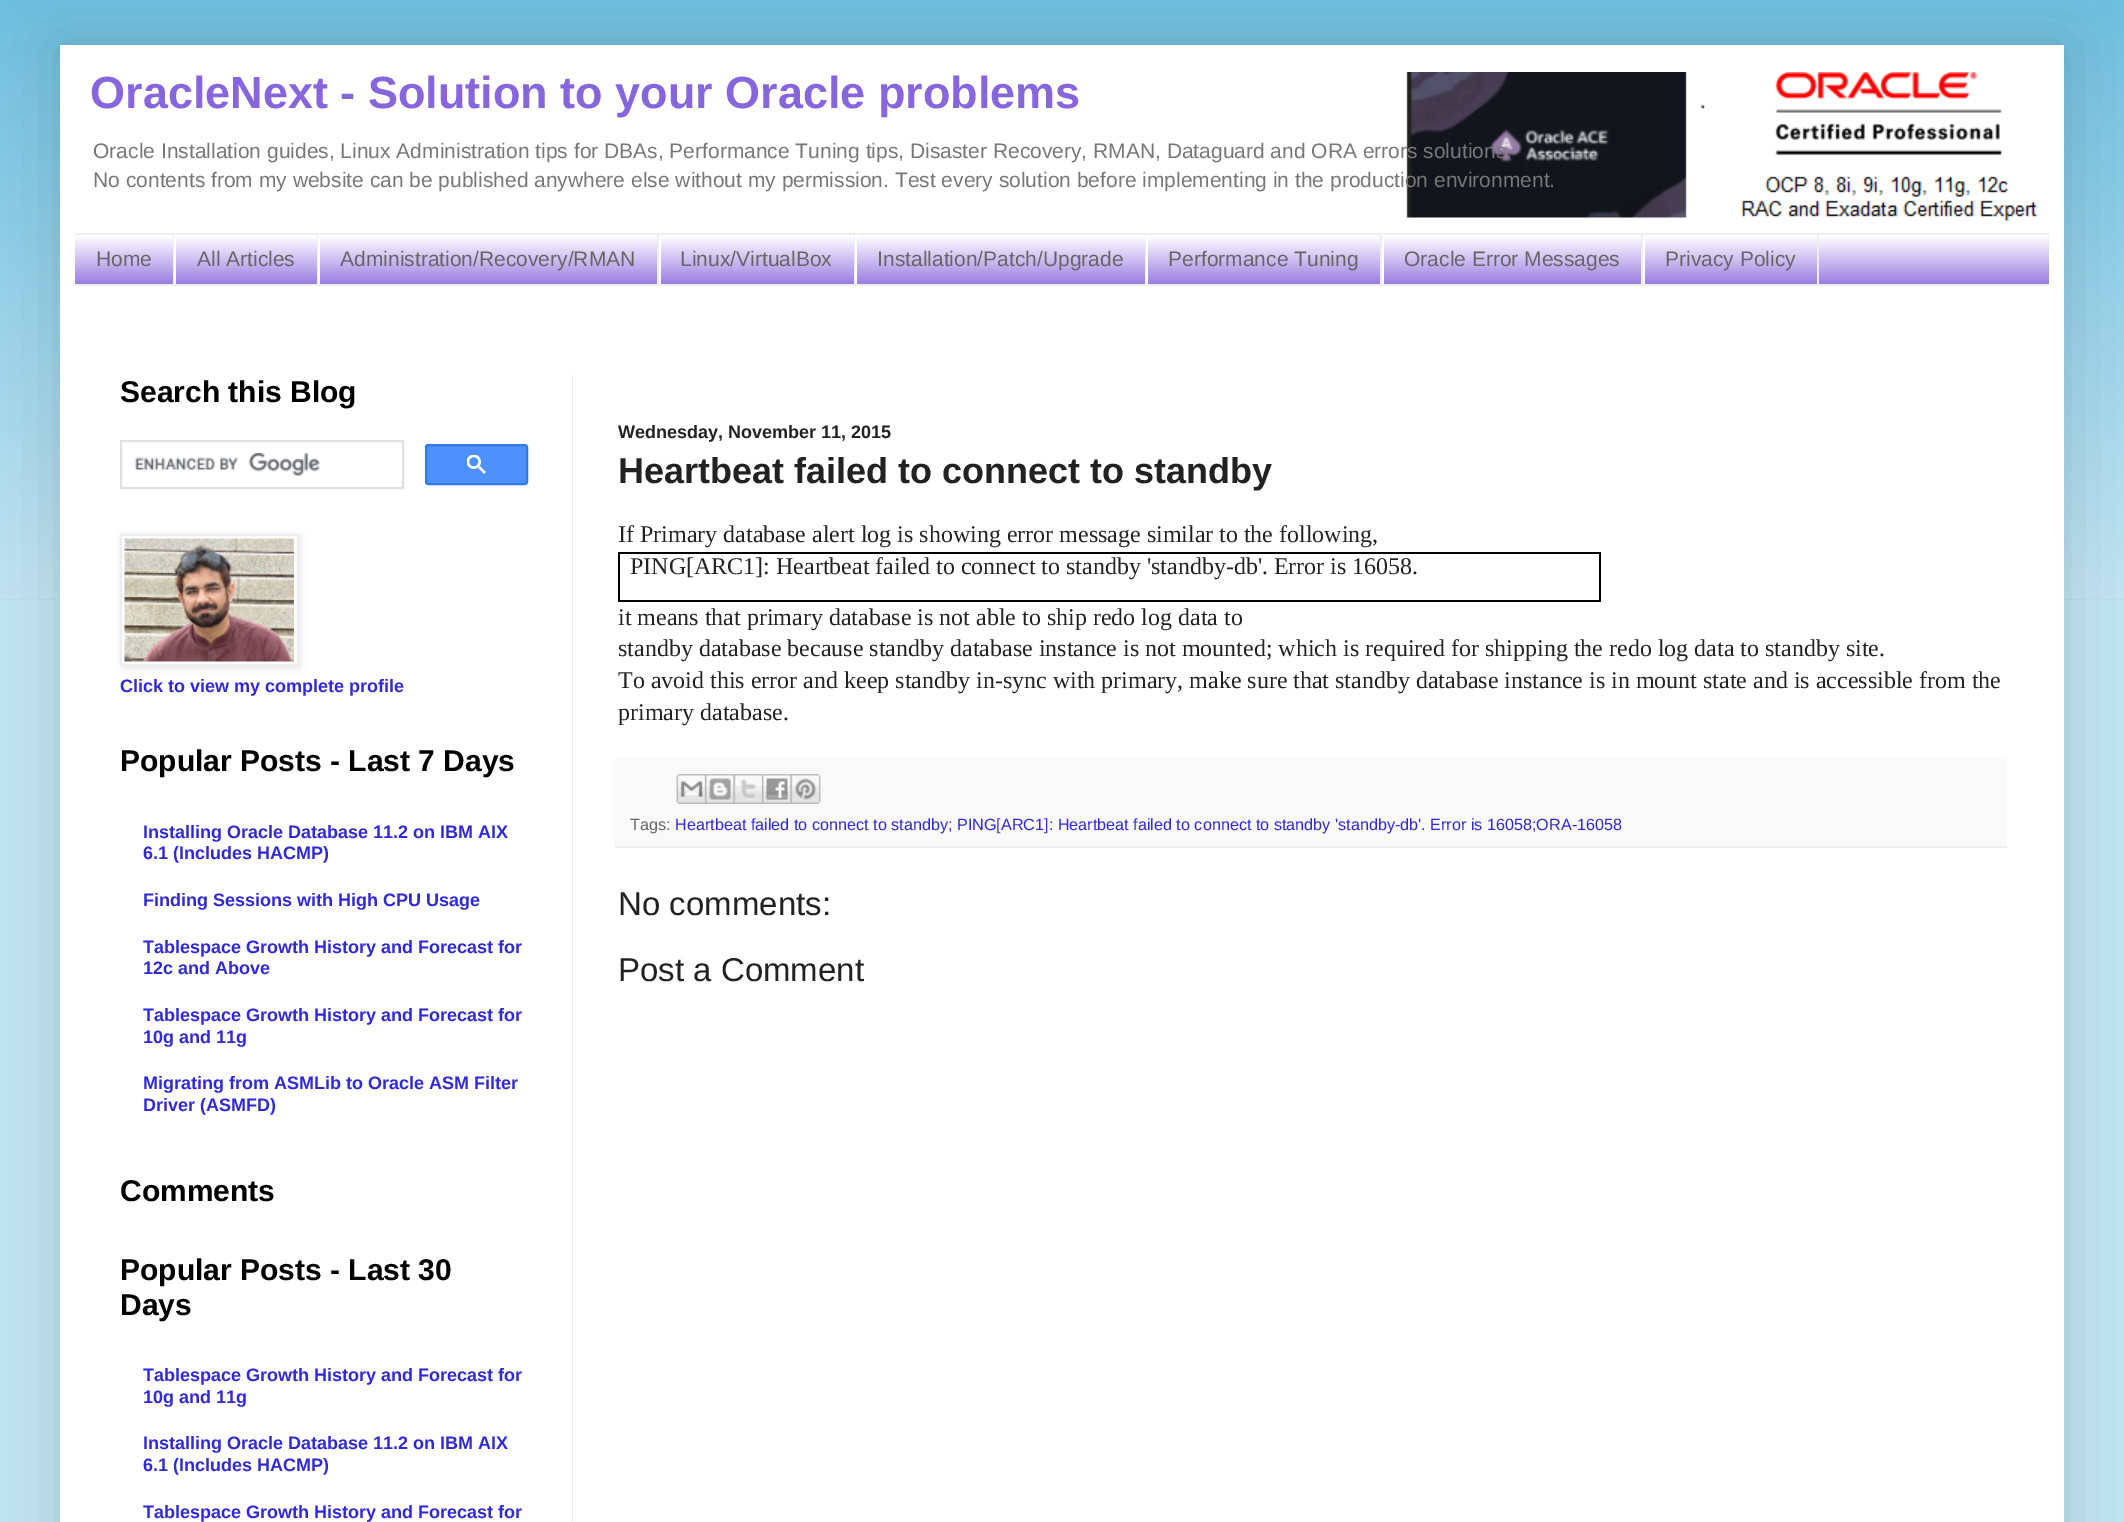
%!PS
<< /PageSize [2124 1522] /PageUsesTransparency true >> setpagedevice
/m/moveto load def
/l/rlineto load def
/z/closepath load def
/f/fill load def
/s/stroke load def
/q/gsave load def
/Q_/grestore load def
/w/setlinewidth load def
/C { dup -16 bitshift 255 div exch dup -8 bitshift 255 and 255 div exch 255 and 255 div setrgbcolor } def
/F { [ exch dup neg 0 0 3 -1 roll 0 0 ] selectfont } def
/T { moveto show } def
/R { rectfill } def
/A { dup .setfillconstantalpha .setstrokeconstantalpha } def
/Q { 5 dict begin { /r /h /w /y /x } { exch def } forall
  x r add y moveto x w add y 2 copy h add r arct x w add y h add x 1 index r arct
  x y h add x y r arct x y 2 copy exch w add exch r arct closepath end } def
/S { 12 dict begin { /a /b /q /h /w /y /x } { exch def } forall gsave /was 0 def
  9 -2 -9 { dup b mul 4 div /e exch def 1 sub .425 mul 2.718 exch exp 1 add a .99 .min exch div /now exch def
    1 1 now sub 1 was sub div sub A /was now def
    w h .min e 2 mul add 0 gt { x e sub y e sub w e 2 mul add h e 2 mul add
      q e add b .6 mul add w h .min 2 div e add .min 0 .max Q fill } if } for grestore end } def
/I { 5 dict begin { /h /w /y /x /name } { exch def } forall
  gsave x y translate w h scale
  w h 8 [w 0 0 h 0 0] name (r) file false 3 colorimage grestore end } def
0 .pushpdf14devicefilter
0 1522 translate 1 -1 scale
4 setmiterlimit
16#C1E5EF C
0 0 2124 1522 R
16#66BBDD C
0 0 2124 600 R
(1.rgb) 0 0 2124 600 I
16#000000 C
60 45 2004 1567 0 30 .15 S
16#FFFFFF C
60 45 2004 1477 R
(2.rgb) 1406 72 632 149 I
/LiberationSans-Bold 45 F
16#8766DD C
(OracleNext - Solution to your Oracle problems) 90 108 T
/LiberationSans-Regular 21 F
16#777777 C
(Oracle Installation guides, Linux Administration tips for DBAs, Performance Tuning tips, Disaster Recovery, RMAN, Dataguard and ORA errors solutions.) 93 158 T
(No contents from my website can be published anywhere else without my permission. Test every solution before implementing in the production environment.) 93 187 T
16#8766DD C
75 236 1974 48 R
(3.rgb) 75 235 1974 49 I
16#EEEEEE C
75 233 1974 2 R
75 284 1974 2 R
173 234 1 50 R
16#666666 C
(Home) 96 266 T
16#EEEEEE C
317 234 1 50 R
16#FFFFFF C
174 234 2 50 R
16#666666 C
(All Articles) 197 266 T
16#EEEEEE C
657 234 2 50 R
16#FFFFFF C
318 234 2 50 R
16#666666 C
(Administration/Recovery/RMAN) 340 266 T
16#EEEEEE C
854 234 1 50 R
16#FFFFFF C
659 234 2 50 R
16#666666 C
(Linux/VirtualBox) 680 266 T
16#EEEEEE C
1145 234 1 50 R
16#FFFFFF C
855 234 2 50 R
16#666666 C
(Installation/Patch/Upgrade) 877 266 T
16#EEEEEE C
1380 234 2 50 R
16#FFFFFF C
1146 234 2 50 R
16#666666 C
(Performance Tuning) 1168 266 T
16#EEEEEE C
1641 234 2 50 R
16#FFFFFF C
1382 234 2 50 R
16#666666 C
(Oracle Error Messages) 1404 266 T
16#EEEEEE C
1817 234 2 50 R
16#FFFFFF C
1643 234 2 50 R
16#666666 C
(Privacy Policy) 1665 266 T
16#EEEEEE C
572 375 1 1147 R
/LiberationSans-Bold 30 F
16#000000 C
(Search this Blog) 120 402 T
16#DFE1E5 C
2 w
121 441 282 47 rectstroke
(4.rgb) 135 453 185 23 I
16#4D90FE C
426 445 101 39 2 Q q f Q_
16#3079ED C
s
(5.rgb) 467 455 19 19 I
16#000000 C
122 536 178 132 0 4 .1 S
16#FFFFFF C
121 535 m 177 0 l 0 130 l -177 0 l z q f Q_
16#EEEEEE C
s
(6.rgb) 124 538 170 124 I
/LiberationSans-Bold 18 F
16#2F29D6 C
(Click to view my complete profile) 120 692 T
/LiberationSans-Bold 30 F
16#000000 C
(Popular Posts - Last 7 Days) 120 771 T
/LiberationSans-Bold 18 F
16#2F29D6 C
(Installing Oracle Database 11.2 on IBM AIX) 143 838 T
(6.1 \(Includes HACMP\)) 143 859 T
(Finding Sessions with High CPU Usage) 143 906 T
(Tablespace Growth History and Forecast for) 143 953 T
(12c and Above) 143 974 T
(Tablespace Growth History and Forecast for) 143 1021 T
(10g and 11g) 143 1043 T
(Migrating from ASMLib to Oracle ASM Filter) 143 1089 T
(Driver \(ASMFD\)) 143 1111 T
/LiberationSans-Bold 30 F
16#000000 C
(Comments) 120 1201 T
(Popular Posts - Last 30) 120 1280 T
(Days) 120 1315 T
/LiberationSans-Bold 18 F
16#2F29D6 C
(Tablespace Growth History and Forecast for) 143 1381 T
(10g and 11g) 143 1403 T
(Installing Oracle Database 11.2 on IBM AIX) 143 1449 T
(6.1 \(Includes HACMP\)) 143 1471 T
(Tablespace Growth History and Forecast for) 143 1518 T
16#222222 C
(Wednesday, November 11, 2015) 618 438 T
/LiberationSans-Bold 36 F
(Heartbeat failed to connect to standby) 618 483 T
/LiberationSerif-Regular 24 F
(If Primary database alert log is showing error message similar to the following,) 618 542 T
16#000000 C
618 552 983 2 R
1599 552 2 50 R
618 600 983 2 R
618 552 2 50 R
16#222222 C
(PING[ARC1]: Heartbeat failed to connect to standby 'standby-db'. Error is 16058.) 630 574 T
(it means that primary database is not able to ship redo log data to) 618 625 T
(standby database because standby database instance is not mounted; which is required for shipping the redo log data to standby site.) 618 656 T
(To avoid this error and keep standby in-sync with primary, make sure that standby database instance is in mount state and is accessible from the) 618 688 T
(primary database.) 618 720 T
16#F9F9F9 C
615 759 1392 87 R
16#EEEEEE C
615 846 1392 2 R
(7.rgb) 676 774 29 30 I
(8.rgb) 705 774 29 30 I
(9.rgb) 733 774 29 30 I
(10.rgb) 762 774 29 30 I
(11.rgb) 790 774 31 30 I
/LiberationSans-Regular 16.2 F
16#666666 C
(Tags:) 630 830 T
16#2F29D6 C
(Heartbeat failed to connect to standby; PING[ARC1]: Heartbeat failed to connect to standby 'standby-db'. Error is 16058;ORA-16058) 675 830 T
/LiberationSans-Regular 33 F
16#222222 C
(No comments:) 618 915 T
(Post a Comment) 618 981 T
.poppdf14devicefilter showpage
